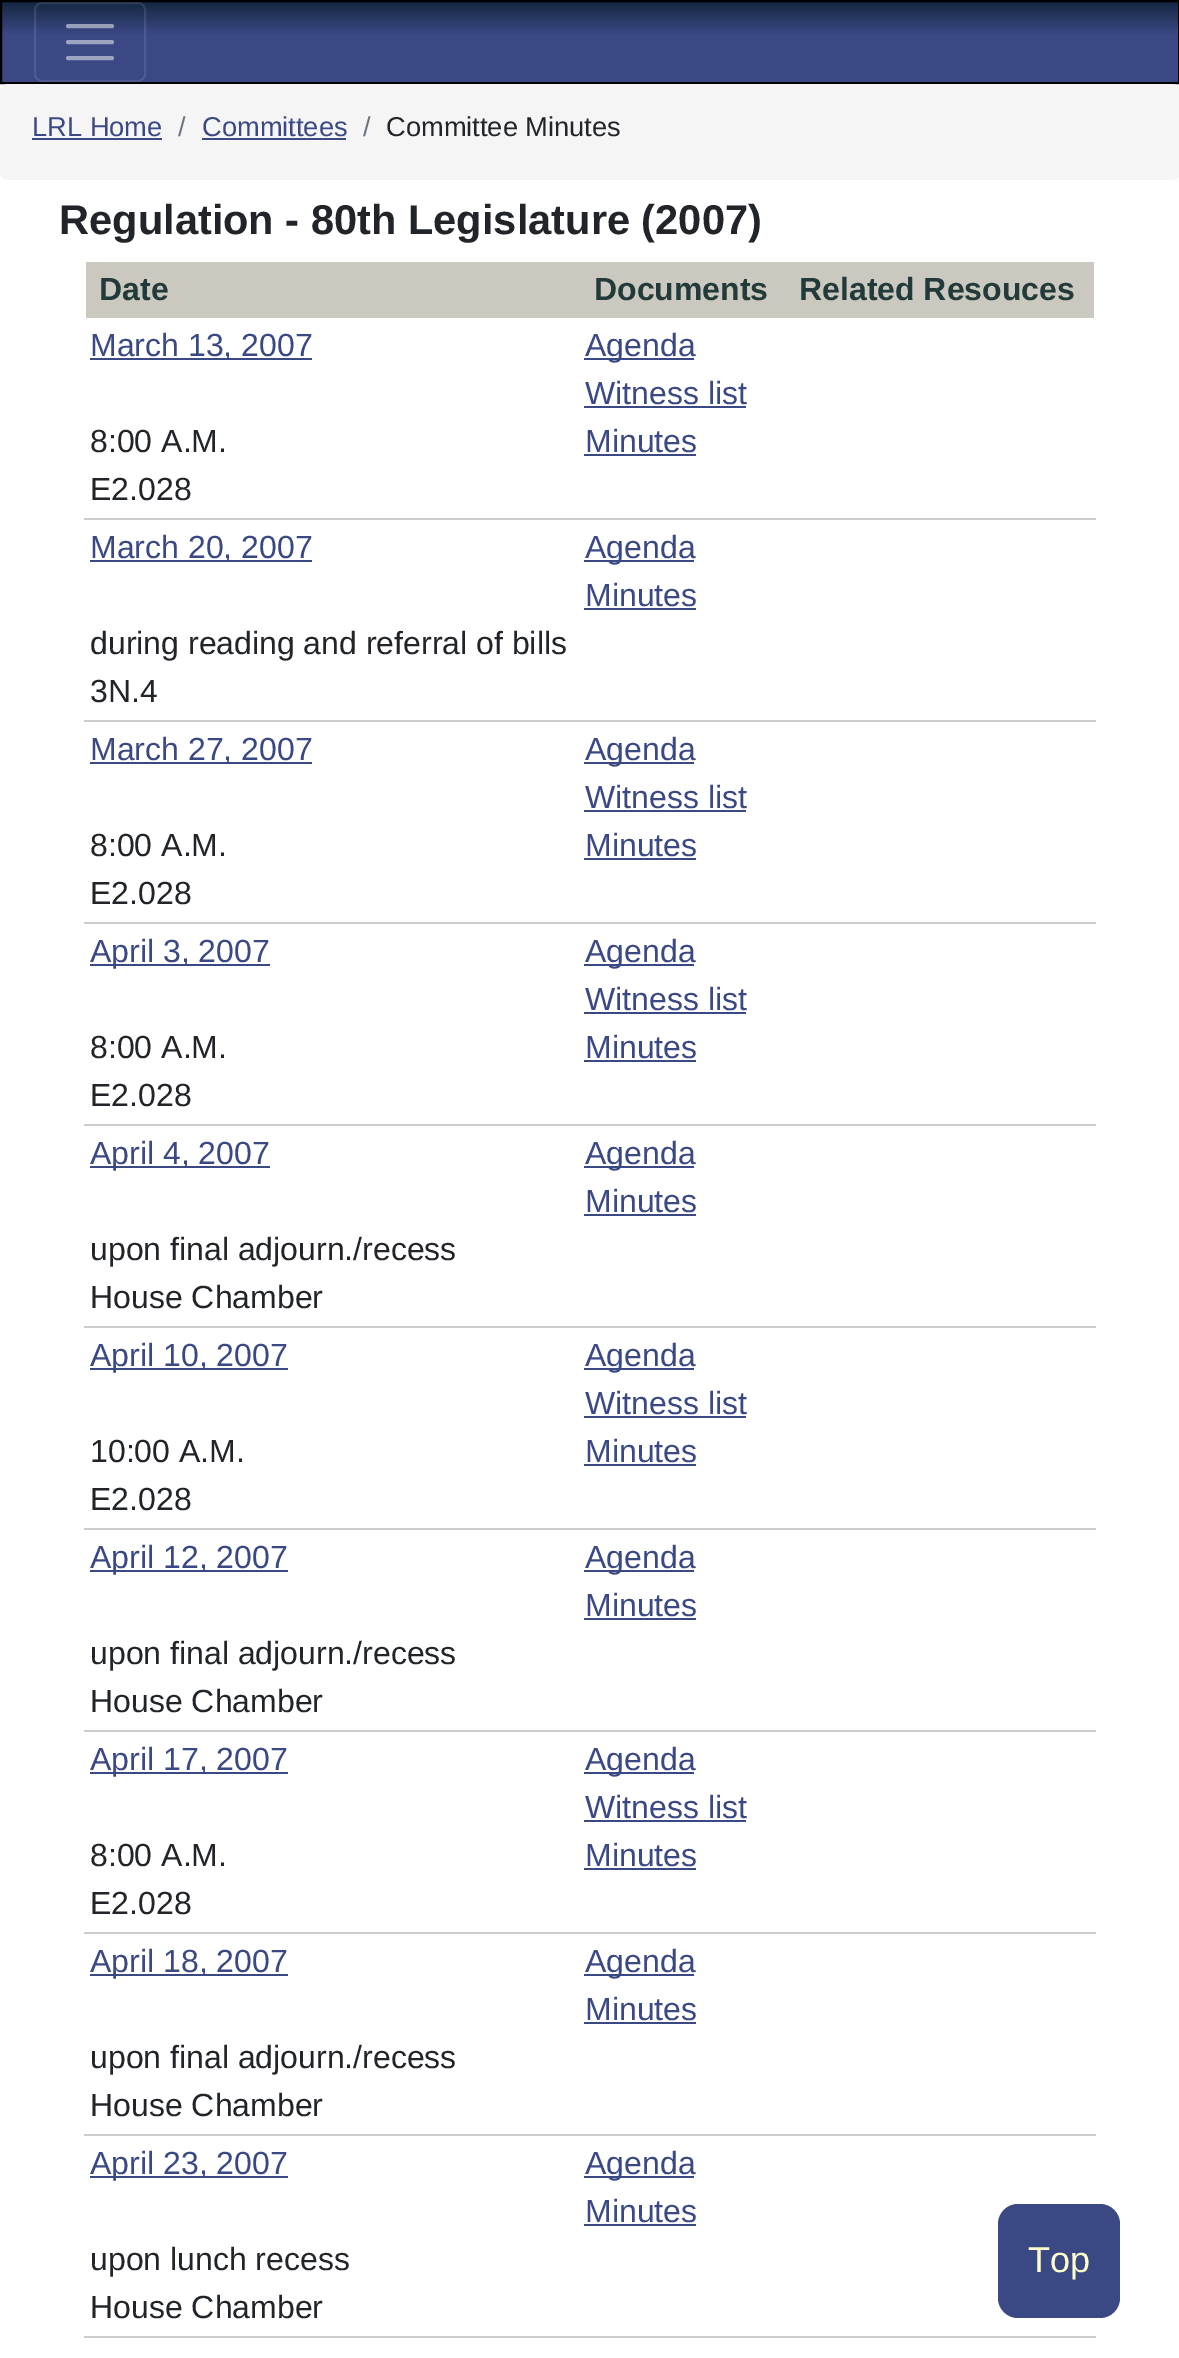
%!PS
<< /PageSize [1179 2358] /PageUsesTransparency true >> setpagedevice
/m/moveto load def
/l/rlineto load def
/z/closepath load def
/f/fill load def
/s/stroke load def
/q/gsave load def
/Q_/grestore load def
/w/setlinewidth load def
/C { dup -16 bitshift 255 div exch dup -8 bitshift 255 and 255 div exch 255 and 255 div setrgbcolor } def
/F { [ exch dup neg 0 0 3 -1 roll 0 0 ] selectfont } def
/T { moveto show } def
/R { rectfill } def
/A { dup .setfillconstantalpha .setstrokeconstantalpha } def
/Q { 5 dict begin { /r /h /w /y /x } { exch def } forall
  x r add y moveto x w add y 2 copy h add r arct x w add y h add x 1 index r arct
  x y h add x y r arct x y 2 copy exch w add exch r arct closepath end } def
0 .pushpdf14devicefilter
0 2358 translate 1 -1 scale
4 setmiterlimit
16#FFFFFF C
0 0 1179 2358 R
q 2 2 m 1176 0 l 0 80 l -1176 0 l z clip newpath
<< /ShadingType 2 /ColorSpace /DeviceRGB /Coords [590 2 590 82] /Extend [true true] /Function << /FunctionType 3 /Domain [0 1] /Functions [<< /FunctionType 2 /Domain [0 1] /C0 [.086 .153 .259] /C1 [.227 .282 .514] /N 1 >> << /FunctionType 2 /Domain [0 1] /C0 [.227 .282 .514] /C1 [.227 .282 .514] /N 1 >>] /Bounds [.4] /Encode [0 1 0 1] >> >> shfill Q_
16#000000 C
2 w
1 1 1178 82 rectstroke
0.1 A
16#FFFFFF C
35 3 110 78 7 Q s
0.5 A
4 w
1 setlinecap
68 26 m 44 0 l 68 42 m 44 0 l 68 58 m 44 0 l s
1 A
16#F5F5F5 C
0 84 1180 96 8 Q f
/LiberationSans-Regular 27.25 F
16#3A4883 C
(LRL Home) 32 136 T
32 138 130 2 R
16#6C757D C
(/) 178 136 T
16#3A4883 C
(Committees) 202 136 T
202 138 144 2 R
16#6C757D C
(/) 363 136 T
16#212529 C
(Committee Minutes) 386 136 T
/LiberationSans-Bold 41.6 F
(Regulation - 80th Legislature \(2007\)) 59 234 T
16#CBC9BF C
86 262 1008 56 R
/LiberationSans-Bold 32 F
16#223A3A C
(Date) 99 300 T
(Documents) 594 300 T
(Related Resouces) 799 300 T
16#3A4883 C
90 358 222 2 R
/LiberationSans-Regular 32 F
(March 13, 2007) 90 356 T
16#212529 C
(8:00 A.M.) 90 452 T
(E2.028) 90 500 T
16#3A4883 C
584 358 110 2 R
(Agenda) 585 356 T
(Witness list) 585 404 T
584 406 162 2 R
(Minutes) 585 452 T
584 454 112 2 R
16#CCCCCC C
84 518 1012 2 R
16#3A4883 C
90 560 222 2 R
(March 20, 2007) 90 558 T
16#212529 C
(during reading and referral of bills) 90 654 T
(3N.4) 90 702 T
16#3A4883 C
584 560 110 2 R
(Agenda) 585 558 T
(Minutes) 585 606 T
584 608 112 2 R
16#CCCCCC C
84 720 1012 2 R
16#3A4883 C
90 762 222 2 R
(March 27, 2007) 90 760 T
16#212529 C
(8:00 A.M.) 90 856 T
(E2.028) 90 904 T
16#3A4883 C
584 762 110 2 R
(Agenda) 585 760 T
(Witness list) 585 808 T
584 810 162 2 R
(Minutes) 585 856 T
584 858 112 2 R
16#CCCCCC C
84 922 1012 2 R
16#3A4883 C
90 964 180 2 R
(April 3, 2007) 90 962 T
16#212529 C
(8:00 A.M.) 90 1058 T
(E2.028) 90 1106 T
16#3A4883 C
584 964 110 2 R
(Agenda) 585 962 T
(Witness list) 585 1010 T
584 1012 162 2 R
(Minutes) 585 1058 T
584 1060 112 2 R
16#CCCCCC C
84 1124 1012 2 R
16#3A4883 C
90 1166 180 2 R
(April 4, 2007) 90 1164 T
16#212529 C
(upon final adjourn./recess) 90 1260 T
(House Chamber) 90 1308 T
16#3A4883 C
584 1166 110 2 R
(Agenda) 585 1164 T
(Minutes) 585 1212 T
584 1214 112 2 R
16#CCCCCC C
84 1326 1012 2 R
16#3A4883 C
90 1368 198 2 R
(April 10, 2007) 90 1366 T
16#212529 C
(10:00 A.M.) 90 1462 T
(E2.028) 90 1510 T
16#3A4883 C
584 1368 110 2 R
(Agenda) 585 1366 T
(Witness list) 585 1414 T
584 1416 162 2 R
(Minutes) 585 1462 T
584 1464 112 2 R
16#CCCCCC C
84 1528 1012 2 R
16#3A4883 C
90 1570 198 2 R
(April 12, 2007) 90 1568 T
16#212529 C
(upon final adjourn./recess) 90 1664 T
(House Chamber) 90 1712 T
16#3A4883 C
584 1570 110 2 R
(Agenda) 585 1568 T
(Minutes) 585 1616 T
584 1618 112 2 R
16#CCCCCC C
84 1730 1012 2 R
16#3A4883 C
90 1772 198 2 R
(April 17, 2007) 90 1770 T
16#212529 C
(8:00 A.M.) 90 1866 T
(E2.028) 90 1914 T
16#3A4883 C
584 1772 110 2 R
(Agenda) 585 1770 T
(Witness list) 585 1818 T
584 1820 162 2 R
(Minutes) 585 1866 T
584 1868 112 2 R
16#CCCCCC C
84 1932 1012 2 R
16#3A4883 C
90 1974 198 2 R
(April 18, 2007) 90 1972 T
16#212529 C
(upon final adjourn./recess) 90 2068 T
(House Chamber) 90 2116 T
16#3A4883 C
584 1974 110 2 R
(Agenda) 585 1972 T
(Minutes) 585 2020 T
584 2022 112 2 R
16#CCCCCC C
84 2134 1012 2 R
16#3A4883 C
90 2176 198 2 R
(April 23, 2007) 90 2174 T
16#212529 C
(upon lunch recess) 90 2270 T
(House Chamber) 90 2318 T
16#3A4883 C
584 2176 110 2 R
(Agenda) 585 2174 T
(Minutes) 585 2222 T
584 2224 112 2 R
16#CCCCCC C
84 2336 1012 2 R
16#3A4883 C
998 2204 122 114 20 Q f
/LiberationSans-Regular 36 F
16#FFFFCC C
(Top) 1028 2272 T
.poppdf14devicefilter showpage
